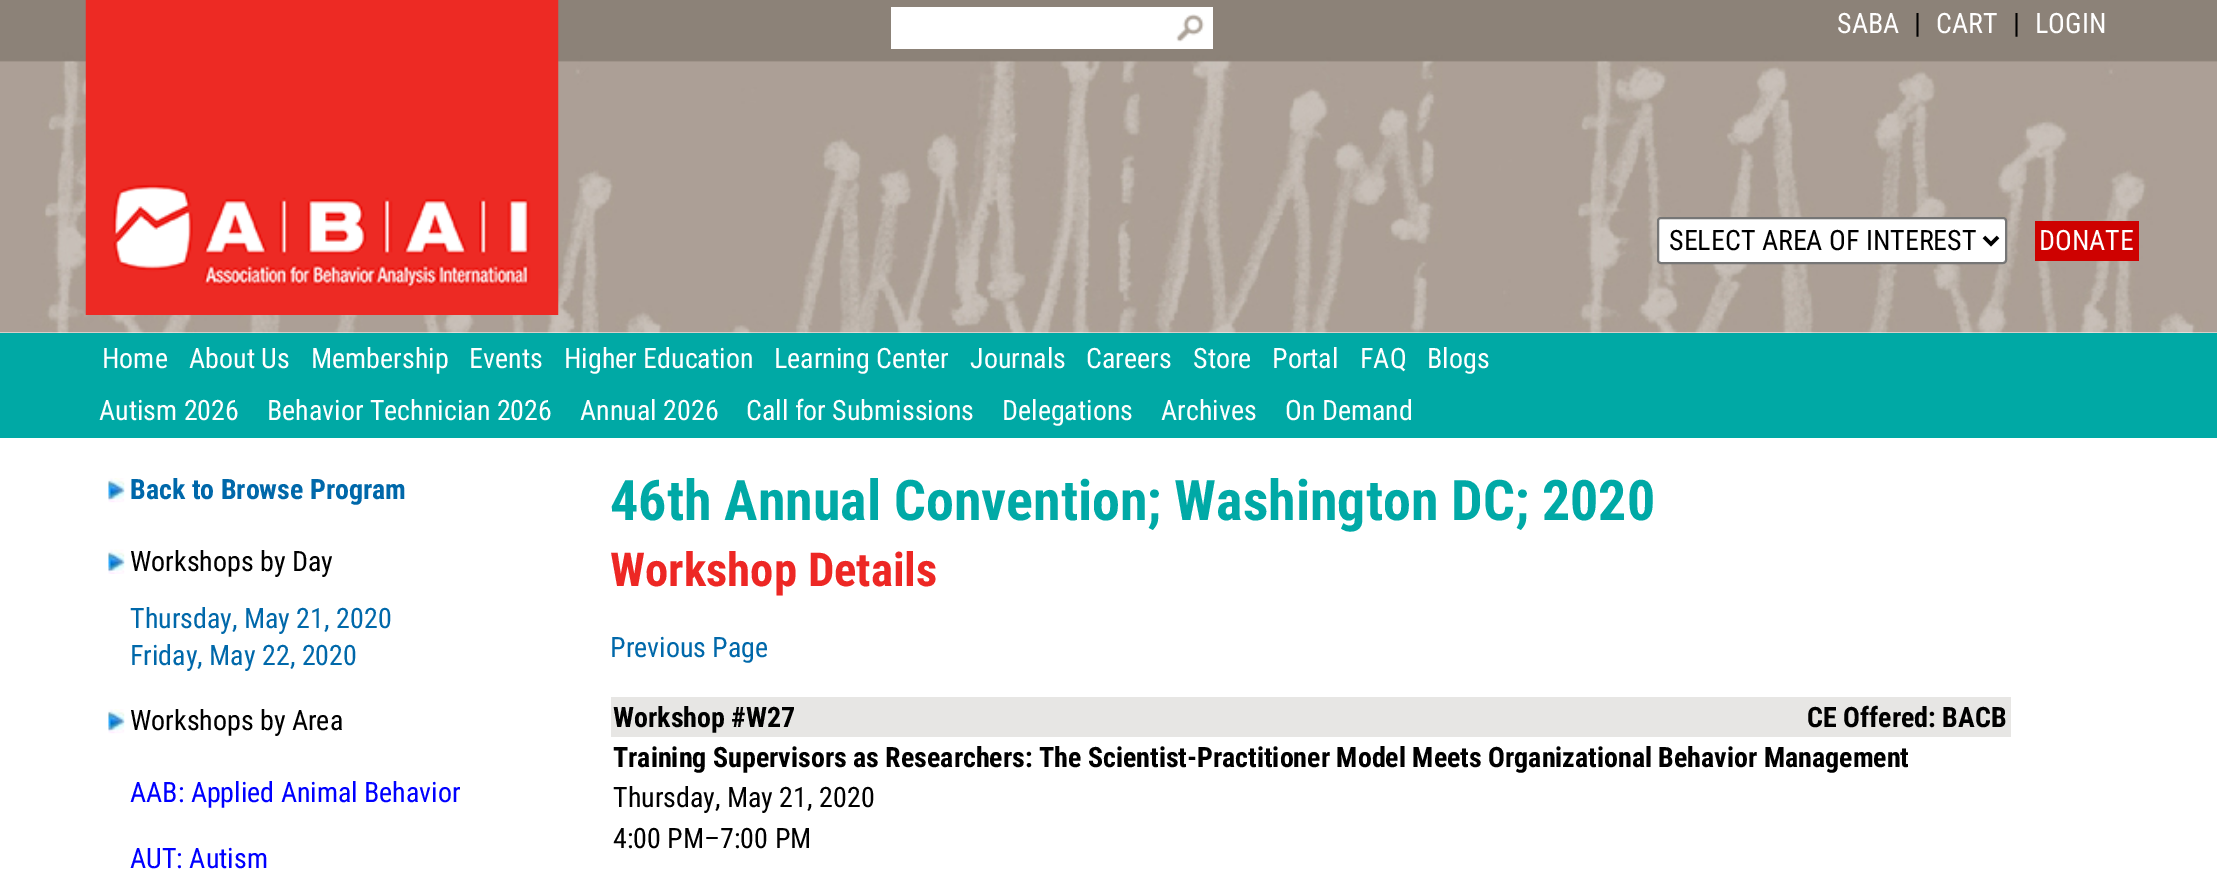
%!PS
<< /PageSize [2217 871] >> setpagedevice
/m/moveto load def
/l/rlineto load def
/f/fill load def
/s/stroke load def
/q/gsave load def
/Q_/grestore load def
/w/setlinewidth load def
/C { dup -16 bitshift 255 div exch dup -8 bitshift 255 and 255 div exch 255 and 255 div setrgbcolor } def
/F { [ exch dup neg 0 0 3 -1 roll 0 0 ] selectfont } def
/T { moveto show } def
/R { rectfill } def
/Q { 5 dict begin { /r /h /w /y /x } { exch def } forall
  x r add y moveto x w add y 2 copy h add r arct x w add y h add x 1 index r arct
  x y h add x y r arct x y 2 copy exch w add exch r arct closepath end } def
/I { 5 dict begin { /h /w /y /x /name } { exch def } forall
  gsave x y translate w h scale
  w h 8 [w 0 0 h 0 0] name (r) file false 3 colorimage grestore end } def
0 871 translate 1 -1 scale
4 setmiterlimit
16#FFFFFF C
0 0 2217 871 R
(1.rgb) 0 0 2217 333 I
(2.rgb) 85 0 474 315 I
891 7 322 42 R
(3.rgb) 1176 14 29 28 I
/RobotoCondensed-Regular 28 F
(SABA) 1837 33 T
16#000000 C
(|) 1914 33 T
16#FFFFFF C
(CART) 1936 33 T
16#000000 C
(|) 2013 33 T
16#FFFFFF C
(LOGIN) 2035 33 T
1658 218 348 45 3 Q q f Q_
16#767676 C
2 w
s
16#000000 C
3.5 w
1984 237 m 7 7 l 7 -7 l s
(SELECT AREA OF INTEREST) 1669 250 T
16#CE0100 C
2035 221 104 40 R
16#FFFFFF C
(DONATE) 2039 250 T
16#00A9A5 C
0 333 2217 105 R
16#FFFFFF C
(Home) 102 368 T
(About Us) 189 368 T
(Membership) 311 368 T
(Events) 469 368 T
(Higher Education) 564 368 T
(Learning Center) 774 368 T
(Journals) 970 368 T
(Careers) 1086 368 T
(Store) 1193 368 T
(Portal) 1272 368 T
(FAQ) 1360 368 T
(Blogs) 1427 368 T
(Autism 2026) 99 420 T
(Behavior Technician 2026) 267 420 T
(Annual 2026) 580 420 T
(Call for Submissions) 746 420 T
(Delegations) 1002 420 T
(Archives) 1161 420 T
(On Demand) 1285 420 T
(4.rgb) 108 478 17 25 I
/RobotoCondensed-Bold 28 F
16#0068AA C
(Back to Browse Program) 130 499 T
(5.rgb) 108 549 17 25 I
/RobotoCondensed-Regular 28 F
16#000000 C
(Workshops by Day) 130 571 T
16#0068AA C
(Thursday, May 21, 2020) 130 628 T
(Friday, May 22, 2020) 130 665 T
(4.rgb) 108 709 17 25 I
16#000000 C
(Workshops by Area) 130 730 T
16#0000FF C
(AAB: Applied Animal Behavior) 130 802 T
(AUT: Autism) 130 868 T
/RobotoCondensed-Bold 56 F
16#00A9A6 C
(46th Annual Convention; Washington DC; 2020) 610 520 T
/RobotoCondensed-Bold 46.75 F
16#ED2724 C
(Workshop Details) 610 586 T
/RobotoCondensed-Regular 28 F
16#0068AA C
(Previous Page) 610 657 T
16#E7E6E4 C
611 697 1400 40 R
/RobotoCondensed-Bold 28 F
16#000000 C
(Workshop #W27) 613 727 T
(CE Offered: BACB) 1807 727 T
(Training Supervisors as Researchers: The Scientist-Practitioner Model Meets Organizational Behavior Management) 613 767 T
/RobotoCondensed-Regular 28 F
(Thursday, May 21, 2020) 613 807 T
(4:00 PM–7:00 PM) 613 848 T
showpage
